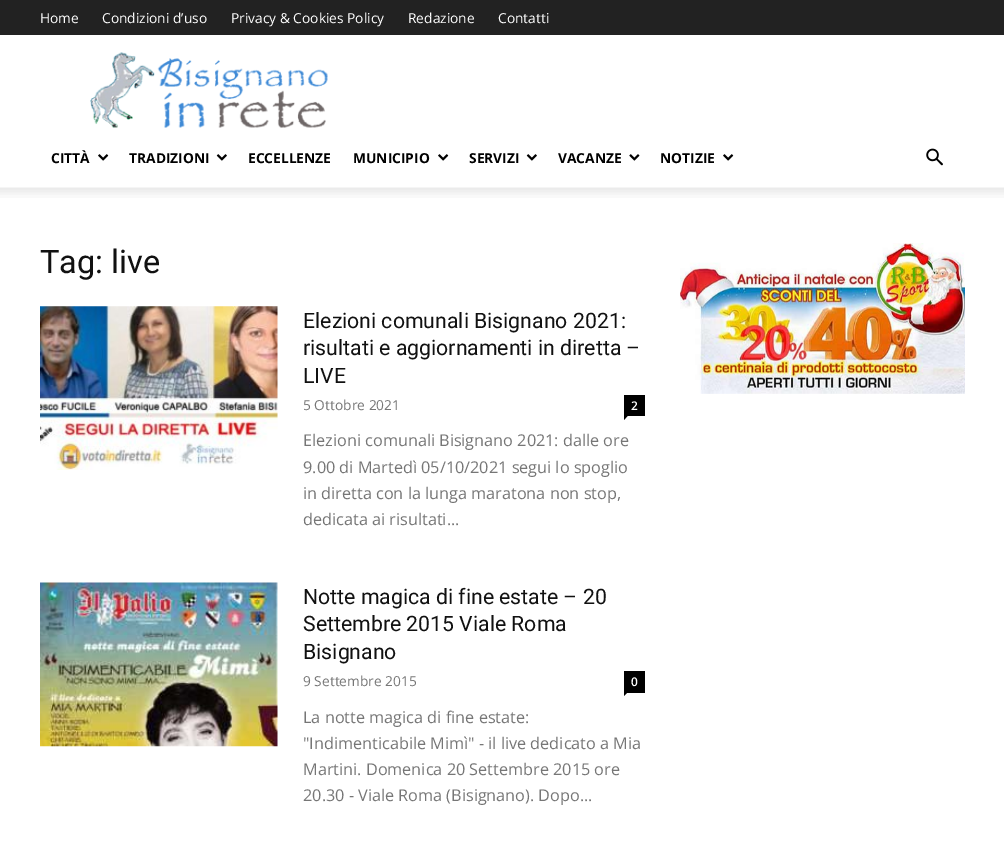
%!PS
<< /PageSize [1004 855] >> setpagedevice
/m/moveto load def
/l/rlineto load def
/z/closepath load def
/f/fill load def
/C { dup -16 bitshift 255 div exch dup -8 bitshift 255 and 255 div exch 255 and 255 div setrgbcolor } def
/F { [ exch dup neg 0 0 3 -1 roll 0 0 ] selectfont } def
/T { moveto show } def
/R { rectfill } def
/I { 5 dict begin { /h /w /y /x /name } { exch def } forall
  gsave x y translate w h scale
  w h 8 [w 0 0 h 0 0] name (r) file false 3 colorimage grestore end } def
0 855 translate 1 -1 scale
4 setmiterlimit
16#FFFFFF C
0 0 1004 855 R
16#222222 C
0 0 1004 35 R
/OpenSans-Regular 13.75 F
16#FFFFFF C
(Home) 40 23 T
(Condizioni d’uso) 102 23 T
(Privacy & Cookies Policy) 231 23 T
(Redazione) 408 23 T
(Contatti) 498 23 T
(1.rgb) 90 52 238 76 I
/OpenSans-Bold 13.75 F
16#000000 C
(CITTÀ) 51 163 T
(2.rgb) 98 154 11 7 I
(TRADIZIONI) 129 163 T
(3.rgb) 216 154 11 7 I
(ECCELLENZE) 248 163 T
(MUNICIPIO) 353 163 T
(2.rgb) 438 154 11 7 I
(SERVIZI) 469 163 T
(3.rgb) 526 154 11 7 I
(VACANZE) 558 163 T
(4.rgb) 629 154 11 7 I
(NOTIZIE) 660 163 T
(2.rgb) 723 154 11 7 I
(5.rgb) 926 148 17 18 I
(6.rgb) 0 187 1004 11 I
/Roboto-Regular 32.5 F
16#111111 C
(Tag: live) 40 273 T
(7.rgb) 40 306 238 164 I
/Roboto-Regular 21.25 F
(Elezioni comunali Bisignano 2021:) 303 328 T
(risultati e aggiornamenti in diretta –) 303 355 T
(LIVE) 303 383 T
/OpenSans-Regular 13.75 F
16#767676 C
(5 Ottobre 2021) 303 410 T
16#000000 C
624 395 21 21 R
/OpenSans-SemiBold 12 F
16#FFFFFF C
(2) 631 410 T
16#000000 C
624 416 m 3.5 0 l -3.5 4 l z f
/OpenSans-Regular 16.25 F
16#767676 C
(Elezioni comunali Bisignano 2021: dalle ore) 303 446 T
(9.00 di Martedì 05/10/2021 segui lo spoglio) 303 473 T
(in diretta con la lunga maratona non stop,) 303 499 T
(dedicata ai risultati...) 303 525 T
(8.rgb) 40 582 238 165 I
/Roboto-Regular 21.25 F
16#111111 C
(Notte magica di fine estate – 20) 303 604 T
(Settembre 2015 Viale Roma) 303 631 T
(Bisignano) 303 659 T
/OpenSans-Regular 13.75 F
16#767676 C
(9 Settembre 2015) 303 686 T
16#000000 C
624 671 21 22 R
/OpenSans-SemiBold 12 F
16#FFFFFF C
(0) 631 686 T
16#000000 C
624 692.5 m 3.5 0 l -3.5 3.5 l z f
/OpenSans-Regular 16.25 F
16#767676 C
(La notte magica di fine estate:) 303 723 T
("Indimenticabile Mimì" - il live dedicato a Mia) 303 749 T
(Martini. Domenica 20 Settembre 2015 ore) 303 775 T
(20.30 - Viale Roma \(Bisignano\). Dopo...) 303 801 T
(9.rgb) 680 243 285 151 I
showpage
